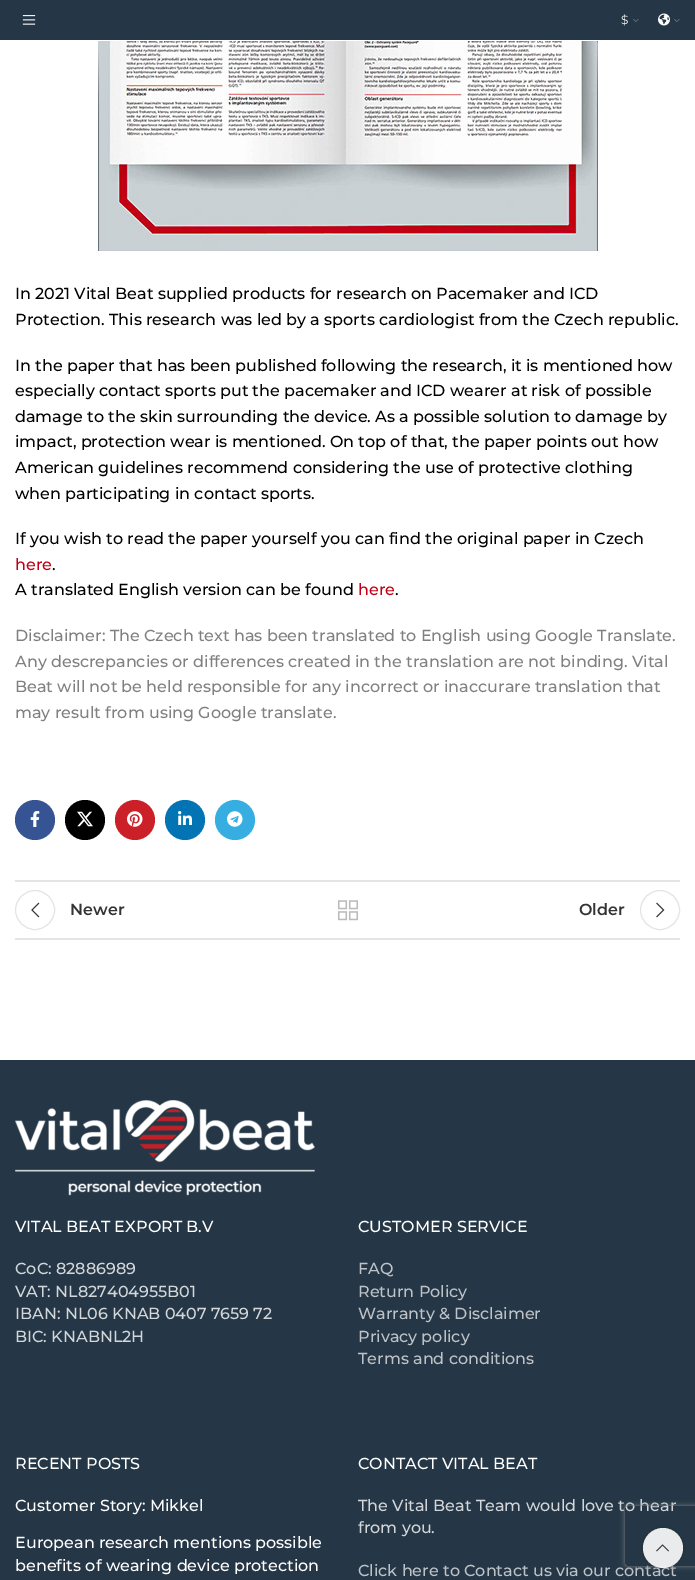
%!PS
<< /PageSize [695 1580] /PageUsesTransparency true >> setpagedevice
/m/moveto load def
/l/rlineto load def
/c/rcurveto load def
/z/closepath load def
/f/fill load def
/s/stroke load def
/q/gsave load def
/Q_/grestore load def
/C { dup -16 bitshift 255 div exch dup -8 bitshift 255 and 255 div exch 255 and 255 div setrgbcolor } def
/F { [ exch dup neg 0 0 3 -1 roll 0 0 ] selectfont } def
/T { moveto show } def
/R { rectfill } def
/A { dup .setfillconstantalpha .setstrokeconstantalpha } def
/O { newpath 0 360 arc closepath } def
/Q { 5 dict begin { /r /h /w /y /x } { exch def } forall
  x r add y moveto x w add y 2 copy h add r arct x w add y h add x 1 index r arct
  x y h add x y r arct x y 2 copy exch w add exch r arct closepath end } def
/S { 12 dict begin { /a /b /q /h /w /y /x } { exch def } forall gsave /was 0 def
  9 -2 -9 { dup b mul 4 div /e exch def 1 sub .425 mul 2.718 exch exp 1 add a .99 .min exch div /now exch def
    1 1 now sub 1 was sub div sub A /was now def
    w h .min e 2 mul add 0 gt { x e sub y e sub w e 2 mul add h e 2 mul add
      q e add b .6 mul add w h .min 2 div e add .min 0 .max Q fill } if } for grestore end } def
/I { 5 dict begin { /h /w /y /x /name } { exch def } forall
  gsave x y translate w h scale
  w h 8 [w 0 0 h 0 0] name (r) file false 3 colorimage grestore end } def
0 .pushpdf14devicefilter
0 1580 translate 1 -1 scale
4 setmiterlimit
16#FFFFFF C
0 0 695 1580 R
16#253746 C
0 0 695 40 R
(1.rgb) 22 15 14 10 I
/Montserrat-Regular 12 F
16#FFFFFF C
($) 621 24 T
(2.rgb) 633 19 6 3 I
(3.rgb) 658 13 12 13 I
(2.rgb) 674 19 6 3 I
(4.rgb) 98 41 500 210 I
/Montserrat-Medium 16 F
16#000000 C
(In 2021 Vital Beat supplied products for research on Pacemaker and ICD) 15 299 T
(Protection. This research was led by a sports cardiologist from the Czech republic.) 15 325 T
(In the paper that has been published following the research, it is mentioned how) 15 371 T
(especially contact sports put the pacemaker and ICD wearer at risk of possible) 15 396 T
(damage to the skin surrounding the device. As a possible solution to damage by) 15 422 T
(impact, protection wear is mentioned. On top of that, the paper points out how) 15 447 T
(American guidelines recommend considering the use of protective clothing) 15 473 T
(when participating in contact sports.) 15 499 T
(If you wish to read the paper yourself you can find the original paper in Czech) 15 544 T
16#C10016 C
(here) 15 570 T
16#000000 C
(.) 52 570 T
(A translated English version can be found) 15 595 T
16#C10016 C
(here) 358 595 T
16#000000 C
(.) 395 595 T
16#808080 C
(Disclaimer: The Czech text has been translated to English using Google Translate.) 15 641 T
(Any descrepancies or differences created in the translation are not binding. Vital) 15 667 T
(Beat will not be held responsible for any incorrect or inaccurare translation that) 15 692 T
(may result from using Google translate.) 15 718 T
16#365493 C
35 820 20 O f
(5.rgb) 30 811 10 16 I
16#000000 C
85 820 20 O f
(6.rgb) 77 811 16 16 I
16#CB2027 C
135 820 20 O f
(7.rgb) 127 811 16 16 I
16#0274B3 C
185 820 20 O f
(8.rgb) 178 811 14 14 I
16#37AEE2 C
235 820 20 O f
(9.rgb) 227 811 16 16 I
16#E4E4E4 C
15 880 665 2 R
15 938 665 2 R
35 910 19.5 O s
(10.rgb) 31 902 9 16 I
/Montserrat-SemiBold 16 F
16#333333 C
(Newer) 70 915 T
(11.rgb) 338 900 20 21 I
(Older) 579 915 T
16#E4E4E4 C
660 910 19.5 O s
(12.rgb) 656 902 9 16 I
16#253746 C
0 1060 695 520 R
(13.rgb) 15 1100 300 96 I
/Montserrat-Medium 16 F
16#FFFFFF C
(VITAL BEAT EXPORT B.V) 15 1232 T
16#D3D7DA C
(CoC: 82886989) 15 1274 T
(VAT: NL827404955B01) 15 1297 T
(IBAN: NL06 KNAB 0407 7659 72) 15 1319 T
(BIC: KNABNL2H) 15 1342 T
16#FFFFFF C
(CUSTOMER SERVICE) 358 1232 T
16#BEC3C8 C
(FAQ) 358 1274 T
(Return Policy) 358 1297 T
(Warranty & Disclaimer) 358 1319 T
(Privacy policy) 358 1342 T
(Terms and conditions) 358 1364 T
16#FFFFFF C
(RECENT POSTS) 15 1469 T
(Customer Story: Mikkel) 15 1511 T
(European research mentions possible) 15 1548 T
(benefits of wearing device protection) 15 1571 T
(CONTACT VITAL BEAT) 358 1469 T
16#D3D7DA C
(The Vital Beat Team would love to hear) 358 1511 T
(from you.) 358 1533 T
16#BEC3C8 C
(Click here to Contact us via our contact) 358 1576 T
q
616 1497 m 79 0 l 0 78 l -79 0 l z 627 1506 m 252 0 l 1 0 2 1 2 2 c 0 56 l 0 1 -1 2 -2 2 c -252 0 l -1 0 -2 -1 -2 -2 c 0 -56 l 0 -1 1 -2 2 -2 c z eoclip newpath
16#808080 C
625 1506 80 60 2 2.5 1 S
Q_
q
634 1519 m 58 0 l 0 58 l -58 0 l z 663 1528 m 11 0 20 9 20 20 c 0 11 -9 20 -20 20 c -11 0 -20 -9 -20 -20 c 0 -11 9 -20 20 -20 c z eoclip newpath
16#000000 C
643 1528 40 40 20 2.5 .17 S
Q_
0.9 A
16#FFFFFF C
663 1548 20 O f
1 A
(14.rgb) 656 1544 13 8 I
.poppdf14devicefilter showpage
